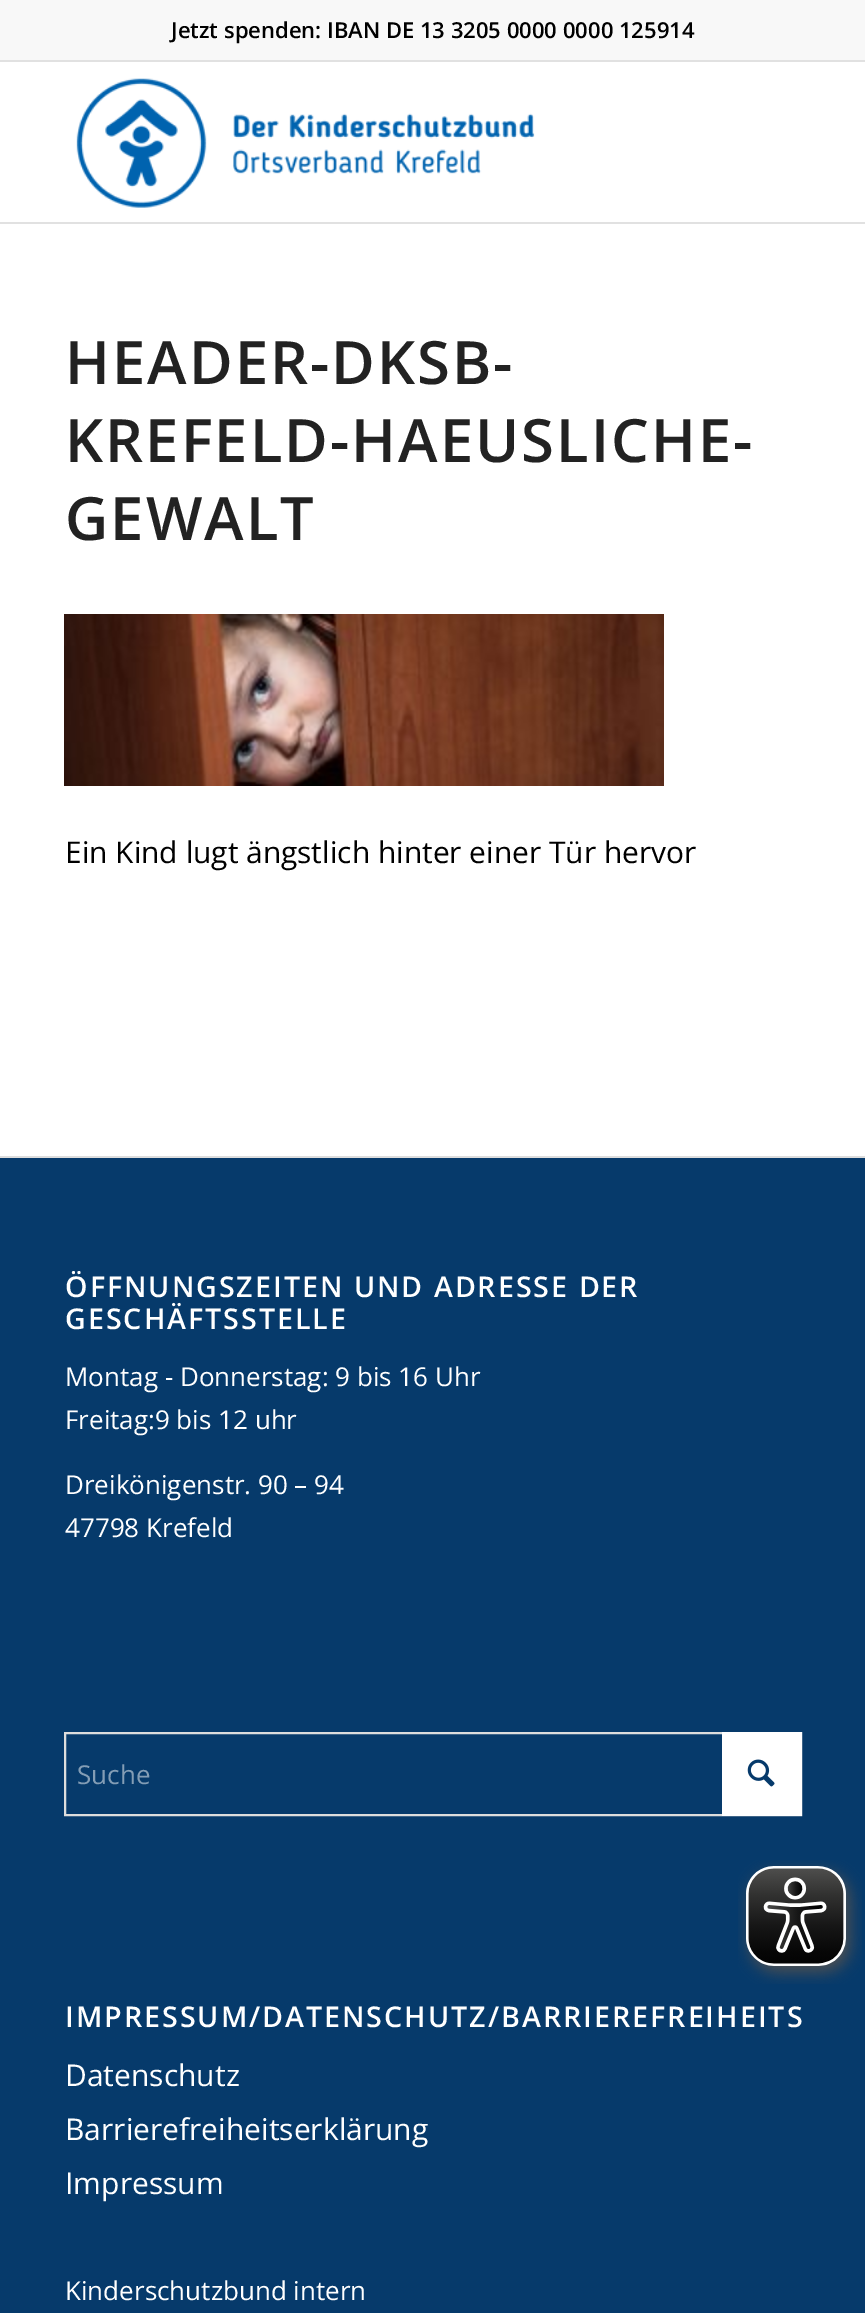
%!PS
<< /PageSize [865 2313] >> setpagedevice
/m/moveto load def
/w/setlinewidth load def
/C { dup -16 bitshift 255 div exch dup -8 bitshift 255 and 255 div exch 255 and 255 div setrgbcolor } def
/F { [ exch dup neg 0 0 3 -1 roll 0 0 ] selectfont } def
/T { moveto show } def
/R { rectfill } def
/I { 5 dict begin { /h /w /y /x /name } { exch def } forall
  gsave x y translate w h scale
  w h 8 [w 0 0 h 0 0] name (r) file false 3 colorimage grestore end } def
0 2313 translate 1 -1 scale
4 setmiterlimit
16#FFFFFF C
0 0 865 2313 R
16#F8F8F8 C
0 0 865 60 R
16#E1E1E1 C
0 60 865 2 R
/OpenSans-SemiBold 22 F
16#000000 C
(Jetzt spenden: IBAN DE 13 3205 0000 0000 125914) 171 38 T
16#E1E1E1 C
0 222 865 2 R
(1.rgb) 76 78 459 130 I
/OpenSans-SemiBold 59.75 F
16#222222 C
65 384 m 2 0 (HEADER-DKSB-) ashow
65 462 m 2 0 (KREFELD-HAEUSLICHE-) ashow
65 540 m 2 0 (GEWALT) ashow
(2.rgb) 64 614 600 172 I
/OpenSans-Regular 29.9 F
16#000000 C
(Ein Kind lugt ängstlich hinter einer Tür hervor) 65 863 T
16#063A6B C
0 1158 865 1155 R
16#DDDDDD C
0 1156 865 2 R
/OpenSans-SemiBold 28.6 F
16#FFFFFF C
65 1297 m 2 0 (ÖFFNUNGSZEITEN UND ADRESSE DER) ashow
65 1329 m 2 0 (GESCHÄFTSSTELLE) ashow
/OpenSans-Regular 26 F
(Montag - Donnerstag: 9 bis 16 Uhr) 65 1386 T
(Freitag:9 bis 12 uhr) 65 1429 T
(Dreikönigenstr. 90 – 94) 65 1494 T
(47798 Krefeld) 65 1537 T
16#DDDDDD C
2 w
65 1733 736 82 rectstroke
16#FFFFFF C
722 1732 80 84 R
16#839DB5 C
(Suche) 77 1784 T
(3.rgb) 747 1759 28 28 I
/OpenSans-SemiBold 28.6 F
16#FFFFFF C
65 2027 m 2 0 (IMPRESSUM/DATENSCHUTZ/BARRIEREFREIHEITS) ashow
/OpenSans-Regular 30 F
(Datenschutz) 65 2086 T
(Barrierefreiheitserklärung) 65 2140 T
(Impressum) 65 2194 T
/OpenSans-Regular 26 F
(Kinderschutzbund intern) 65 2300 T
(4.rgb) 738 1860 124 124 I
showpage
